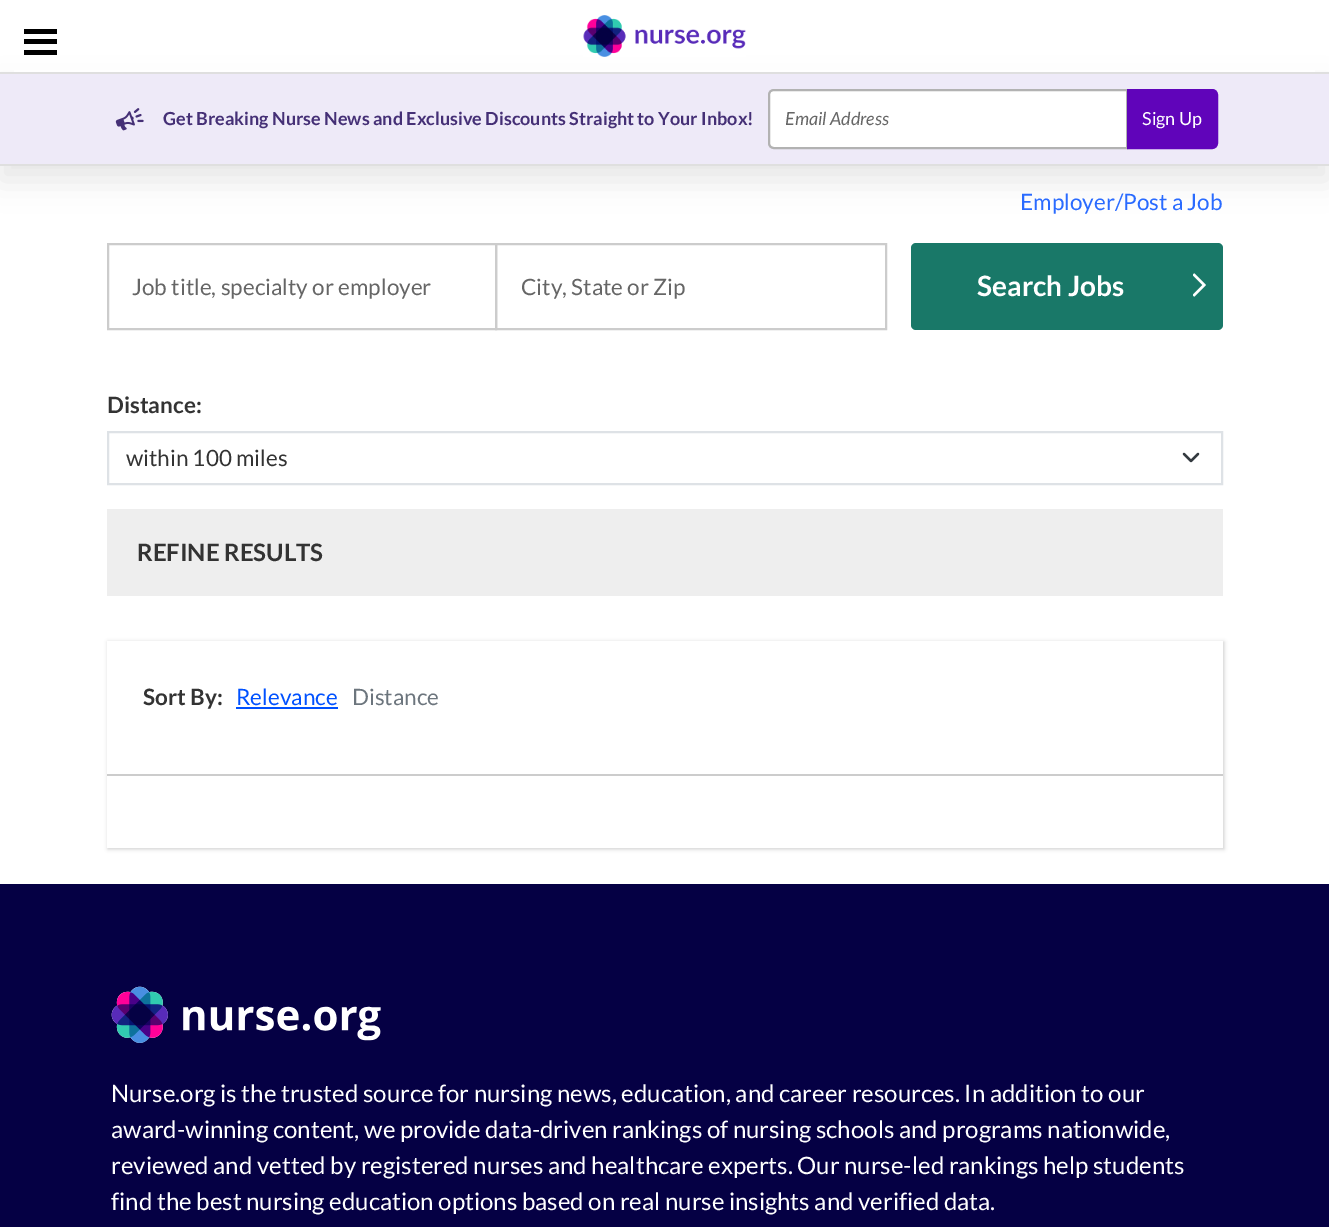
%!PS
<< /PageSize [1329 1227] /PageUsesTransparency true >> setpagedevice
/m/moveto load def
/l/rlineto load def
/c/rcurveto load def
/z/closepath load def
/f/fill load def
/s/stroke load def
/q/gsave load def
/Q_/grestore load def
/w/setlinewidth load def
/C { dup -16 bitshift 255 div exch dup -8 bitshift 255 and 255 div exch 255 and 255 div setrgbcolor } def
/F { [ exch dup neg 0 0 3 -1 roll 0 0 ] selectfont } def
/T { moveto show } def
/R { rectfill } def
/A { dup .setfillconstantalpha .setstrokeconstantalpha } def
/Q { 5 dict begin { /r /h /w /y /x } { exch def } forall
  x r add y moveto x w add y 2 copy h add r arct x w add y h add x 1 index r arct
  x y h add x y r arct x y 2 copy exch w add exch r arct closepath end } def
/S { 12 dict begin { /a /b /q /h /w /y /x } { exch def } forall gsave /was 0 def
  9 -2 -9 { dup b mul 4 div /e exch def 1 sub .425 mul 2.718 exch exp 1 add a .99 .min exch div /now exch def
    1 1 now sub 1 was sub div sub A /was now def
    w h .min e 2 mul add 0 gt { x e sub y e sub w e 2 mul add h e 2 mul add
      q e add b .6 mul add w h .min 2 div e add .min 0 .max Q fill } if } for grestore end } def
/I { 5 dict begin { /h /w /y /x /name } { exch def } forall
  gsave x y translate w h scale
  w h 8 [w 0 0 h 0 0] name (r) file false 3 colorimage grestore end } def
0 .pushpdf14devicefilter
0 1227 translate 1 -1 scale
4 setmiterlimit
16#FFFFFF C
0 0 1329 1227 R
16#000000 C
0 89 1329 91 0 15 .1 S
16#FFFFFF C
14 70 1301 2 R
16#DFDFDF C
0 72 1329 2 R
(1.rgb) 583 15 163 42 I
16#000000 C
24 39 33 5 R
24 29 33 5 R
24 50 33 5 R
16#EEEAF8 C
0 74 1329 90 R
16#DFDFDF C
0 164 1329 2 R
(2.rgb) 115 108 29 23 I
/Lato-Bold 18 F
16#453076 C
(Get Breaking Nurse News and Exclusive Discounts Straight to Your Inbox!) 163 125 T
16#FFFFFF C
774 90 m 353 0 l 0 58 l -353 0 l -3 0 -5 -2 -5 -5 c 0 -48 l 0 -3 2 -5 5 -5 c z q f Q_
16#B2B2B2 C
2 w
s
/Lato-Italic 18 F
16#666666 C
(Email Address) 785 125 T
16#6004BA C
1128 90 m 84 0 l 3 0 5 2 5 5 c 0 48 l 0 3 -2 5 -5 5 c -84 0 l z q f Q_
s
/Lato-Regular 18 F
16#FFFFFF C
(Sign Up) 1142 125 T
/Lato-Regular 22.5 F
16#2A6BFF C
(Employer/Post a Job) 1020 210 T
16#CCCCCC C
108 244 388 85 rectstroke
16#666666 C
(Job title, specialty or employer) 132 295 T
16#CCCCCC C
496 244 390 85 rectstroke
16#666666 C
(City, State or Zip) 521 295 T
16#197868 C
911 243 312 87 5 Q f
/Lato-Bold 28 F
16#FFFFFF C
(Search Jobs) 977 296 T
(3.rgb) 1193 273 13 24 I
/Lato-Bold 22.5 F
16#333333 C
(Distance:) 107 413 T
16#343A40 C
2.2 w
1 setlinecap
1 setlinejoin
1184 454 m 7 7 l 7 -7 l s
16#DEE2E6 C
2 w
0 setlinecap
0 setlinejoin
108 432 1114 52 rectstroke
/Lato-Regular 22.5 F
16#333333 C
(within 100 miles) 126 466 T
16#EEEEEE C
107 509 1116 87 R
/Lato-Bold 24 F
16#333333 C
(REFINE RESULTS) 137 561 T
16#000000 C
108 642 1116 207 0 2 .2 S
16#FFFFFF C
107 641 1116 207 R
16#CCCCCC C
107 774 1116 2 R
/Lato-Bold 22.5 F
16#333333 C
(Sort By:) 143 705 T
/Lato-Regular 22.5 F
16#0051FF C
(Relevance) 236 705 T
236 707 102 2 R
16#6C757D C
(Distance) 352 705 T
16#050044 C
0 884 1329 343 R
(4.rgb) 111 986 270 57 I
/Lato-Regular 24 F
16#FFFFFF C
(Nurse.org is the trusted source for nursing news, education, and career resources. In addition to our) 111 1102 T
(award-winning content, we provide data-driven rankings of nursing schools and programs nationwide,) 111 1138 T
(reviewed and vetted by registered nurses and healthcare experts. Our nurse-led rankings help students) 111 1174 T
(find the best nursing education options based on real nurse insights and verified data.) 111 1210 T
.poppdf14devicefilter showpage
